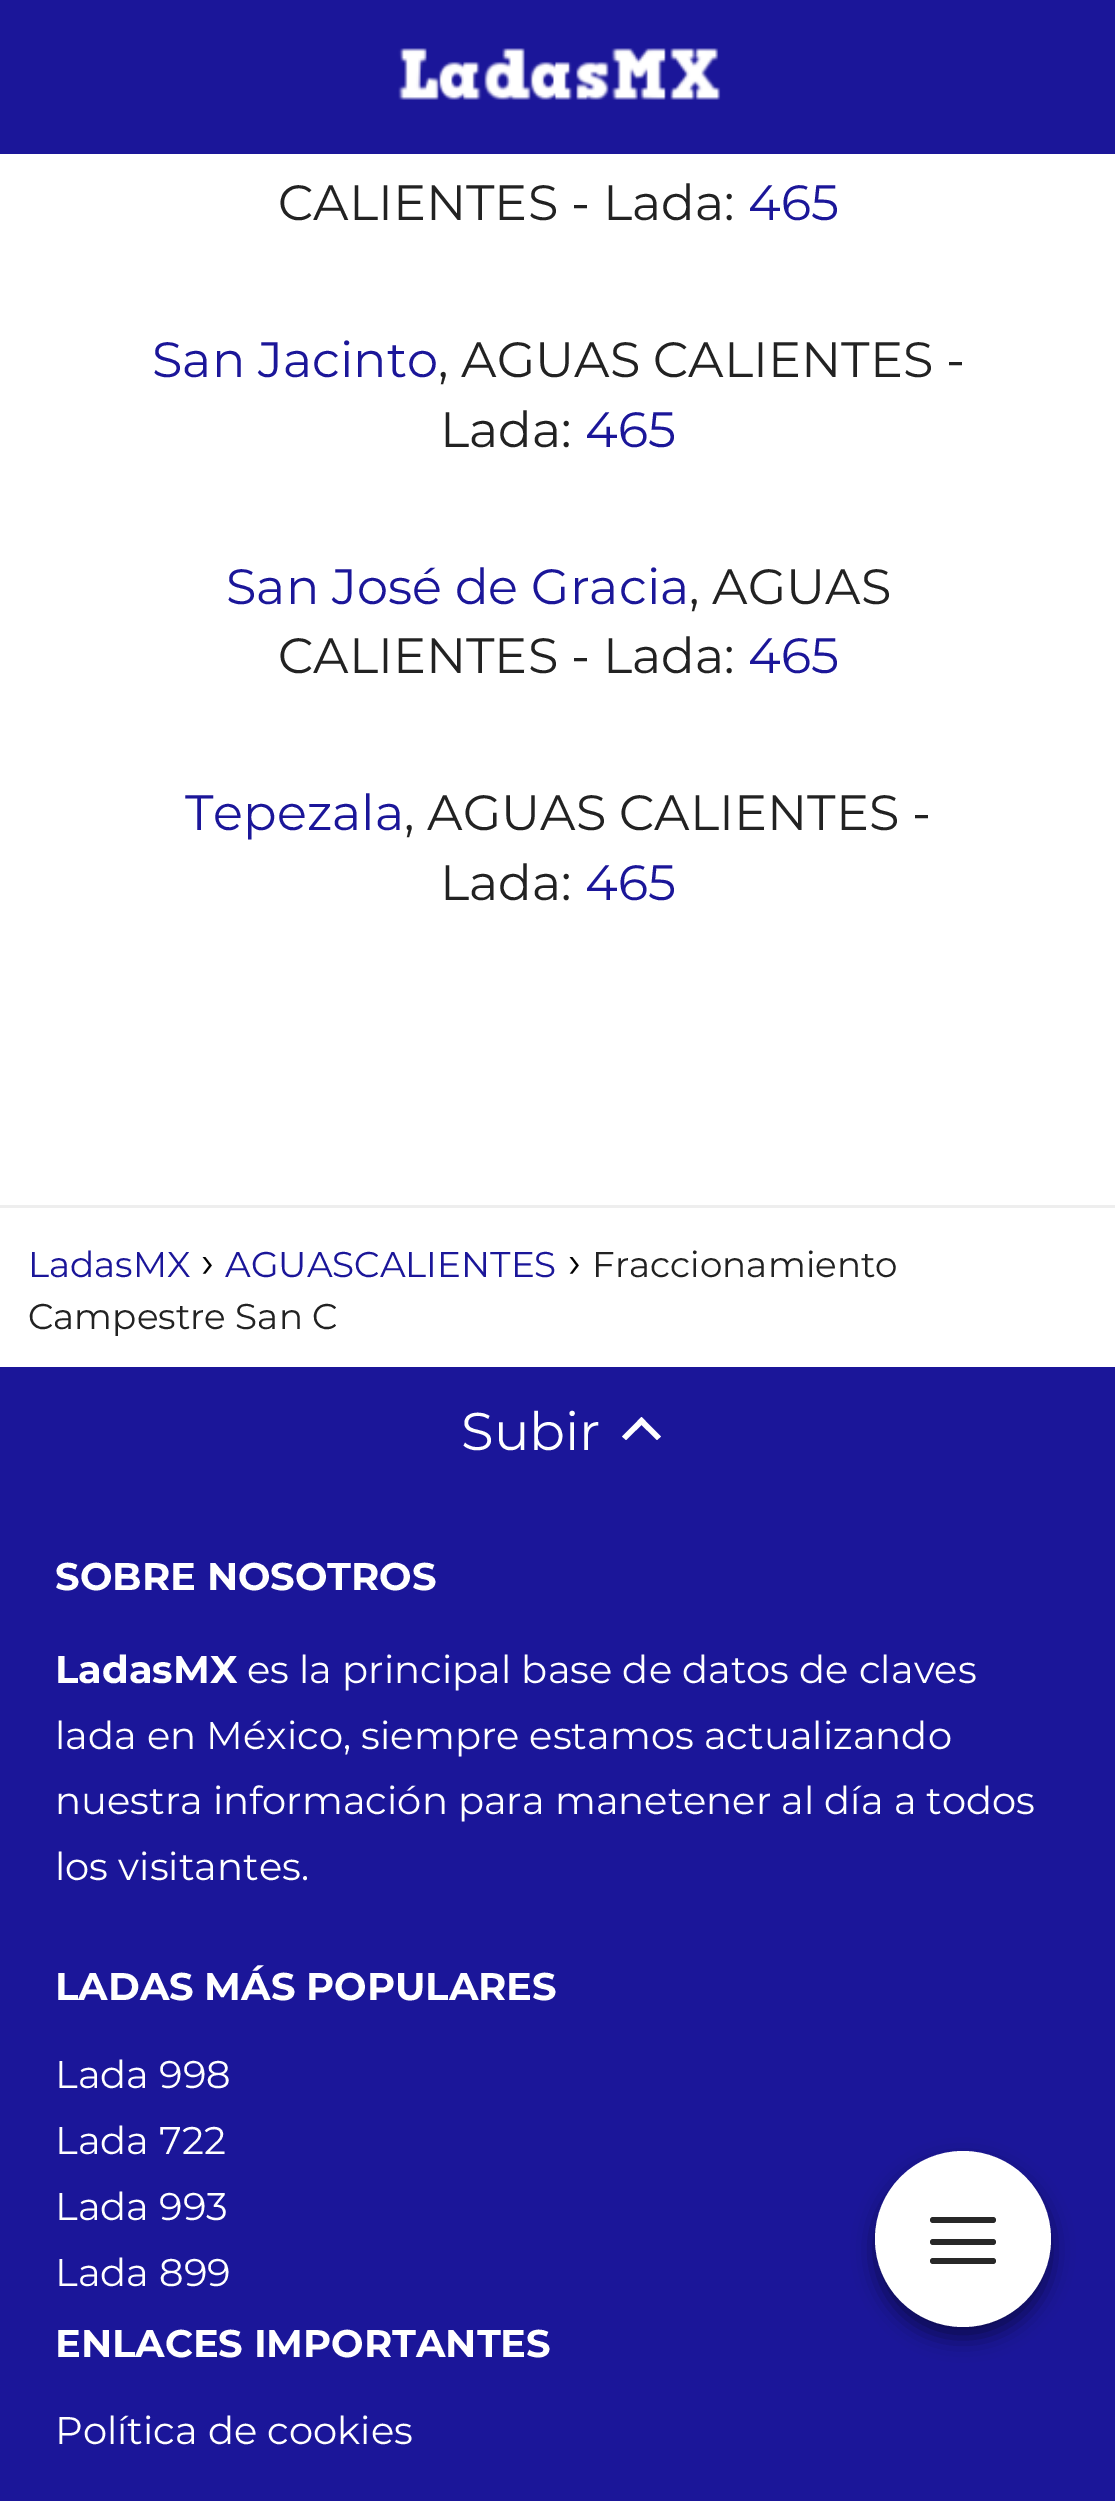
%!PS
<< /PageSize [1115 2501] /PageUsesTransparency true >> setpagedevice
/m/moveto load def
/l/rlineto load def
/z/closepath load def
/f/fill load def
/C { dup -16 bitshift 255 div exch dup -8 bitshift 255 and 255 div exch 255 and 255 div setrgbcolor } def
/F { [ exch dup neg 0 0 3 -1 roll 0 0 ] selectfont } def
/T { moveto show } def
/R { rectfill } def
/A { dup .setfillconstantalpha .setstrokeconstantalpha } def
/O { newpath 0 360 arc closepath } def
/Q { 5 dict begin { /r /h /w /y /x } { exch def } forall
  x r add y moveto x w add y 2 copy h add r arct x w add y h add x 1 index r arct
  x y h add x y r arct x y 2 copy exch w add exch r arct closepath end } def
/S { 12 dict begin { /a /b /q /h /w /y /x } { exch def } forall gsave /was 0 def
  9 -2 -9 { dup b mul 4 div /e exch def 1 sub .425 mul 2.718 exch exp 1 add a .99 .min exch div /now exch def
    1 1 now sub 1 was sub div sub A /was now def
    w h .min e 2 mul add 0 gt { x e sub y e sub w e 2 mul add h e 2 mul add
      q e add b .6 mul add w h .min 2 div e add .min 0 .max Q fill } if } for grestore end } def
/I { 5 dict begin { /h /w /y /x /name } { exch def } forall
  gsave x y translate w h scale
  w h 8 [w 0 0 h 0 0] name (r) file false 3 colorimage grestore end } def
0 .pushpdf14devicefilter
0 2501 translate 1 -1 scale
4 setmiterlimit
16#FFFFFF C
0 0 1115 2501 R
16#1B1699 C
0 0 1115 154 R
(1.rgb) 398 48 323 52 I
0 1367 1115 1134 R
16#000000 C
875 2162 176 176 88 11 .5 S
16#FFFFFF C
963 2239 88 O f
16#282828 C
930 2217 66 6 3 Q f
930 2239 66 6 3 Q f
930 2258 66 6 3 Q f
/Montserrat-Regular 49.5 F
16#222222 C
(CALIENTES - Lada:) 278 220 T
16#1B1699 C
(465) 748 220 T
(San Jacinto) 152 377 T
16#222222 C
(, AGUAS CALIENTES -) 438 377 T
(Lada:) 440 447 T
16#1B1699 C
(465) 585 447 T
(San José de Gracia) 226 604 T
16#222222 C
(, AGUAS) 689 604 T
(CALIENTES - Lada:) 278 673 T
16#1B1699 C
(465) 748 673 T
(Tepezala) 185 830 T
16#222222 C
(, AGUAS CALIENTES -) 404 830 T
(Lada:) 440 900 T
16#1B1699 C
(465) 585 900 T
16#EEEEEE C
0 1205 1115 3 R
/Montserrat-Regular 35.75 F
16#1B1699 C
(LadasMX) 28 1277 T
/Montserrat-Regular 44 F
16#000000 C
(›) 201 1277 T
/Montserrat-Regular 35.75 F
16#1B1699 C
(AGUASCALIENTES) 225 1277 T
/Montserrat-Regular 44 F
16#000000 C
(›) 568 1277 T
/Montserrat-Regular 35.75 F
16#222222 C
(Fraccionamiento) 592 1277 T
(Campestre San C) 28 1329 T
/Montserrat-Regular 53 F
16#FFFFFF C
(Subir) 461 1450 T
626 1440 m -4 -3.5 l 19.5 -19.5 l 4 4 l z f
657 1440 m -19.5 -19 l 4 -4 l 19.5 19.5 l z f
/Montserrat-Bold 38.5 F
(SOBRE NOSOTROS) 55 1590 T
(LadasMX) 55 1683 T
/Montserrat-Regular 38.5 F
(es la principal base de datos de claves) 247 1683 T
(lada en México, siempre estamos actualizando) 55 1749 T
(nuestra información para manetener al día a todos) 55 1814 T
(los visitantes.) 55 1880 T
/Montserrat-Bold 38.5 F
(LADAS MÁS POPULARES) 55 2000 T
/Montserrat-Regular 38.5 F
(Lada 998) 55 2088 T
(Lada 722) 55 2154 T
(Lada 993) 55 2220 T
(Lada 899) 55 2286 T
/Montserrat-Bold 38.5 F
(ENLACES IMPORTANTES) 55 2357 T
/Montserrat-Regular 38.5 F
(Política de cookies) 55 2444 T
.poppdf14devicefilter showpage
